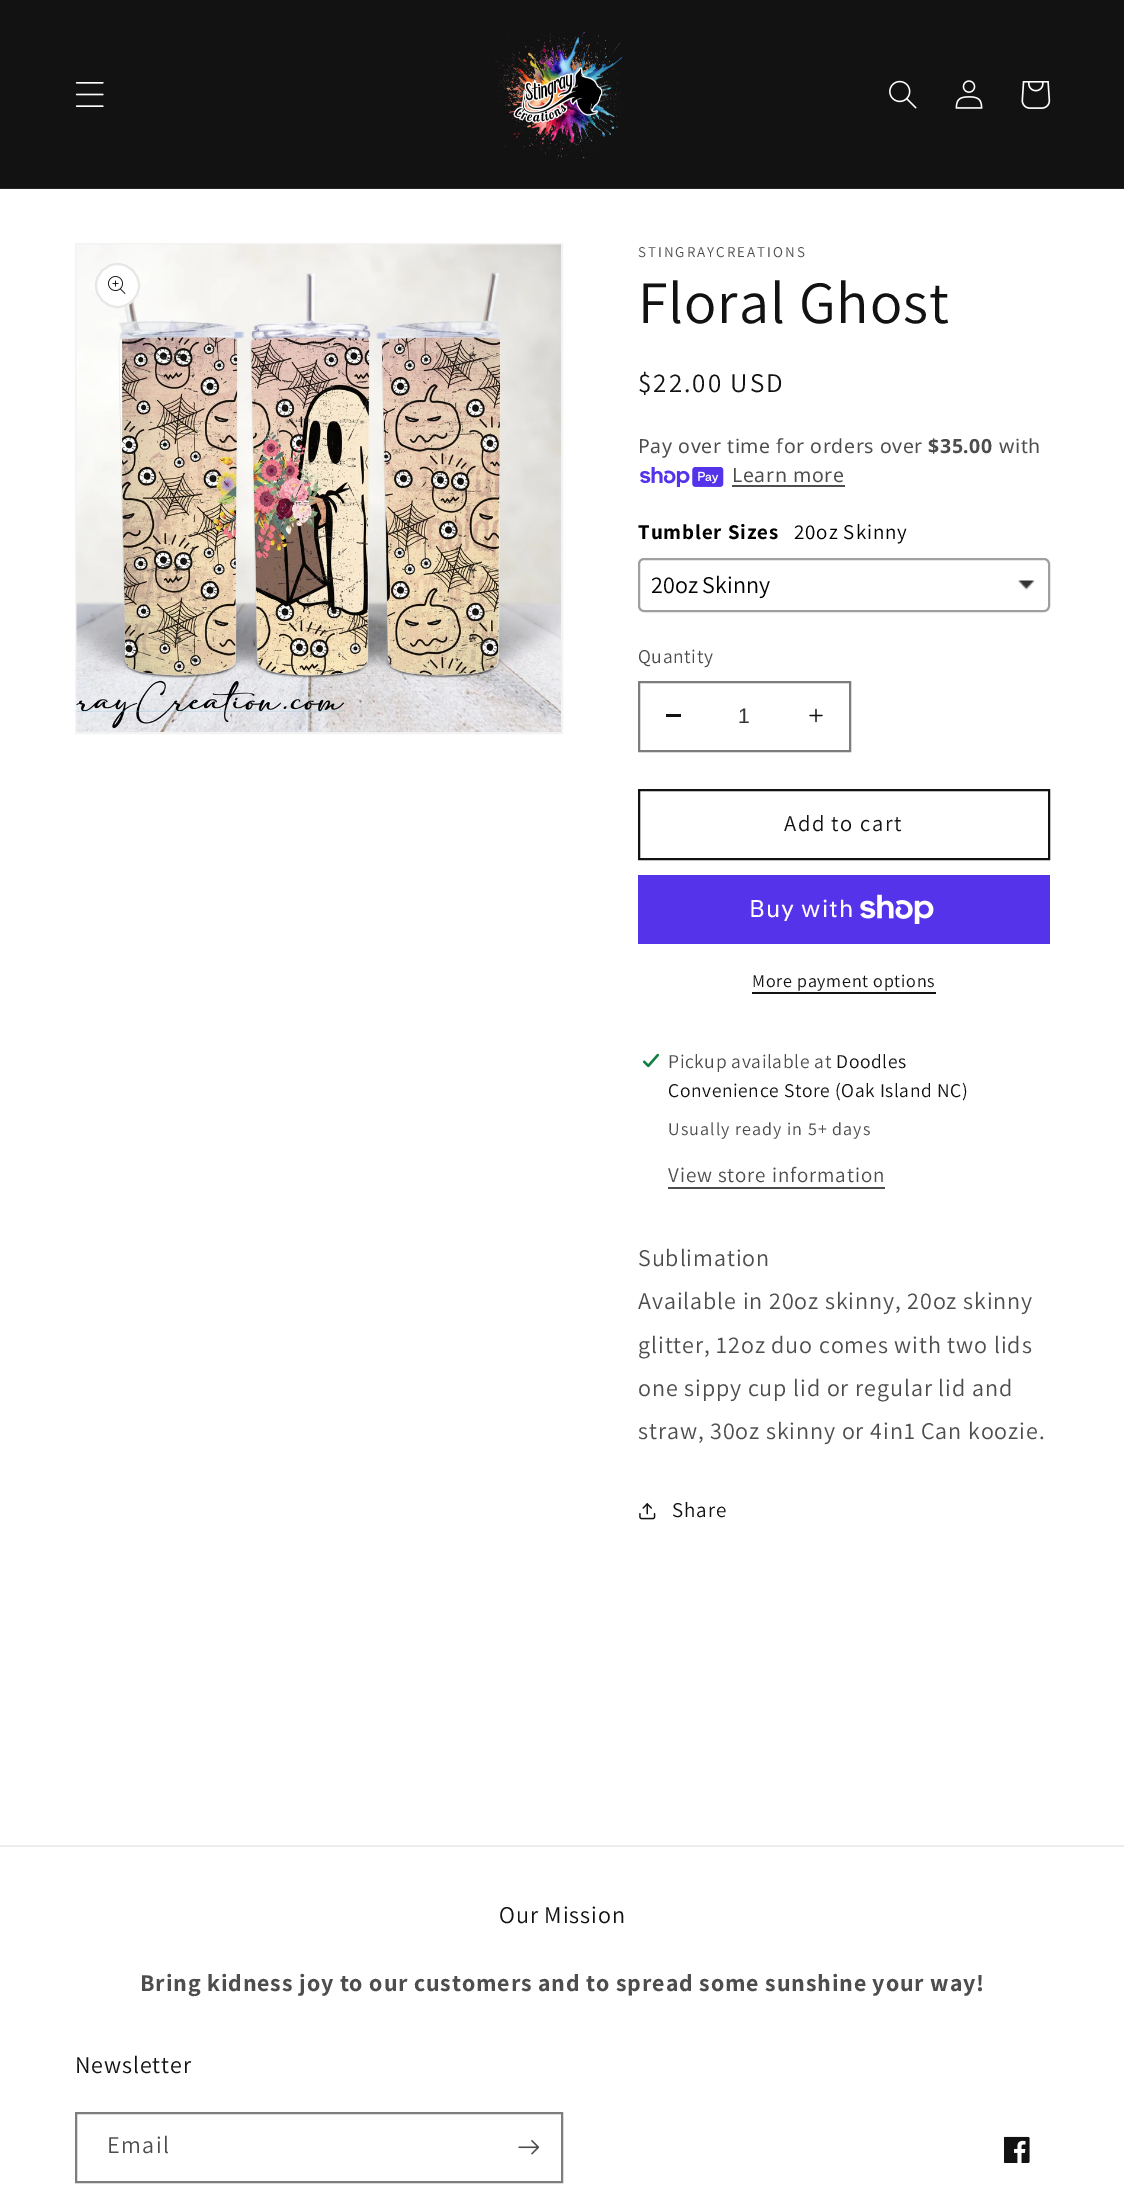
%!PS
<< /PageSize [1124 2204] /PageUsesTransparency true >> setpagedevice
/m/moveto load def
/f/fill load def
/s/stroke load def
/w/setlinewidth load def
/C { dup -16 bitshift 255 div exch dup -8 bitshift 255 and 255 div exch 255 and 255 div setrgbcolor } def
/F { [ exch dup neg 0 0 3 -1 roll 0 0 ] selectfont } def
/T { moveto show } def
/R { rectfill } def
/A { dup .setfillconstantalpha .setstrokeconstantalpha } def
/O { newpath 0 360 arc closepath } def
/Q { 5 dict begin { /r /h /w /y /x } { exch def } forall
  x r add y moveto x w add y 2 copy h add r arct x w add y h add x 1 index r arct
  x y h add x y r arct x y 2 copy exch w add exch r arct closepath end } def
/I { 5 dict begin { /h /w /y /x /name } { exch def } forall
  gsave x y translate w h scale
  w h 8 [w 0 0 h 0 0] name (r) file false 3 colorimage grestore end } def
0 .pushpdf14devicefilter
0 2204 translate 1 -1 scale
4 setmiterlimit
16#FFFFFF C
0 0 1124 2204 R
16#121212 C
0 0 1124 188 R
16#252525 C
0 188 1124 1 R
(1.rgb) 75 82 29 25 I
(2.rgb) 495 31 129 128 I
(3.rgb) 889 80 28 29 I
(4.rgb) 955 80 28 29 I
(5.rgb) 1021 81 30 28 I
16#F3F3F3 C
2 w
76 244 486 489 rectstroke
(6.rgb) 76 244 485 488 I
16#FFFFFF C
117.5 285.5 22.5 O f
0.1 A
16#121212 C
117.5 285.5 21.5 O s
1 A
(7.rgb) 108 276 18 18 I
/Assistant-Regular 15 F
16#4D4D4D C
638 257 m 2 0 (STINGRAYCREATIONS) ashow
/Assistant-Regular 60 F
16#121212 C
638 323 m .9 0 (Floral Ghost) ashow
/Assistant-Regular 27 F
638 392 m 2 0 ($22.00 USD) ashow
/NotoSans-Regular 19.5 F
16#4D4D4D C
638 453 m .6 0 (Pay over time for orders over) ashow
/NotoSans-Bold 19.5 F
928 453 m .6 0 ($35.00) ashow
/NotoSans-Regular 19.5 F
999 453 m .6 0 (with) ashow
(8.rgb) 640 467 84 21 I
732 482 m .6 0 (Learn more) ashow
732 485 113 2 R
/Assistant-Bold 21 F
16#000000 C
638 539 m .9 0 (Tumbler Sizes) ashow
/Assistant-Regular 21 F
794 539 m .9 0 (20oz Skinny) ashow
(9.rgb) 1018 580 17 10 I
16#A0A0A0 C
639 559 410 52 5 Q s
/Assistant-Regular 24 F
16#000000 C
(20oz Skinny) 651 593 T
/Assistant-Regular 19.5 F
16#4D4D4D C
638 663 m .6 0 (Quantity) ashow
16#121212 C
666 714 15 3 R
(10.rgb) 809 708 14 15 I
16#7D7D7D C
639 682 211 69 rectstroke
/LiberationSans-Regular 21 F
16#363636 C
(1) 738 723 T
16#121212 C
639 790 410 69 rectstroke
/Assistant-Regular 22.5 F
784 831 m 1.5 0 (Add to cart) ashow
16#5433EB C
638 875 412 69 R
/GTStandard-Regular 24 F
16#FFFFFF C
749 917 m .9 0 (Buy with) ashow
(11.rgb) 860 894 74 30 I
/Assistant-Regular 18 F
16#121212 C
752 987 m .75 0 (More payment options) ashow
752 992 184 2 R
(12.rgb) 642 1053 18 15 I
/Assistant-Regular 19.5 F
16#4D4D4D C
668 1068 m .6 0 (Pickup available at) ashow
16#121212 C
836 1068 m .6 0 (Doodles) ashow
668 1097 m .6 0 (Convenience Store \(Oak Island NC\)) ashow
/Assistant-Regular 18 F
16#4D4D4D C
668 1135 m 1.05 0 (Usually ready in 5+ days) ashow
/Assistant-Regular 21 F
668 1182 m .9 0 (View store information) ashow
668 1187 217 2 R
/Assistant-Regular 24 F
638 1266 m .9 0 (Sublimation) ashow
638 1309 m .9 0 (Available in 20oz skinny, 20oz skinny) ashow
638 1353 m .9 0 (glitter, 12oz duo comes with two lids) ashow
638 1396 m .9 0 (one sippy cup lid or regular lid and) ashow
638 1439 m .9 0 (straw, 30oz skinny or 4in1 Can koozie.) ashow
(13.rgb) 639 1503 17 17 I
/Assistant-Regular 21 F
16#121212 C
672 1517 m .9 0 (Share) ashow
16#ECECEC C
0 1845 1124 2 R
/Assistant-Regular 24 F
16#121212 C
499 1923 m .9 0 (Our Mission) ashow
/Assistant-Bold 24 F
16#4D4D4D C
140 1991 m .9 0 (Bring kidness joy to our customers and to spread some sunshine your way!) ashow
/Assistant-Regular 24 F
16#121212 C
75 2073 m .9 0 (Newsletter) ashow
16#7D7D7D C
76 2113 486 69 rectstroke
16#4D4D4D C
107 2153 m 1.5 0 (Email) ashow
(14.rgb) 518 2140 22 15 I
(15.rgb) 1004 2136 26 27 I
.poppdf14devicefilter showpage
